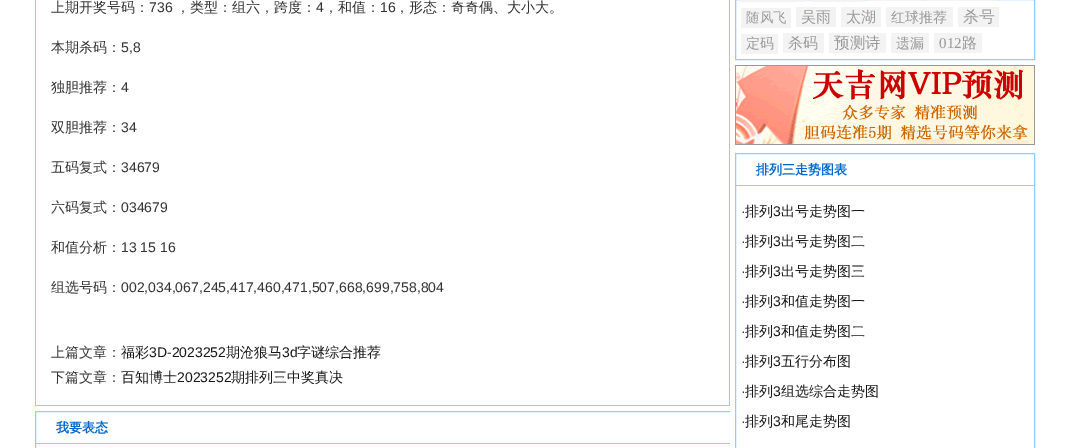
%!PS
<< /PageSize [1069 448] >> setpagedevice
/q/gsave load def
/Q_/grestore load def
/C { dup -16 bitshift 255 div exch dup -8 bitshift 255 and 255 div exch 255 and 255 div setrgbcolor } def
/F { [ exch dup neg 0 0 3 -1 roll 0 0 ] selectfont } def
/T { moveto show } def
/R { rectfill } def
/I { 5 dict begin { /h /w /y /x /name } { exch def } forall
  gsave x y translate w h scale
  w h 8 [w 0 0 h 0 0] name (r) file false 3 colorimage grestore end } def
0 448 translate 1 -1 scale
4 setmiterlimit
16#FFFFFF C
0 0 1069 448 R
16#95CAFF C
729 0 1 406 R
35 405 695 1 R
35 0 1 406 R
/WenQuanYiZenHei-Medium 14 F
16#333333 C
(上期开奖号码：) 51 12 T
/LiberationSans-Regular 14 F
(736) 149 12 T
/WenQuanYiZenHei-Medium 14 F
(，类型：组六，跨度：) 176 12 T
/LiberationSans-Regular 14 F
(4) 316 12 T
/WenQuanYiZenHei-Medium 14 F
(，和值：) 324 12 T
/LiberationSans-Regular 14 F
(16) 380 12 T
/WenQuanYiZenHei-Medium 14 F
(，形态：奇奇偶、大小大。) 395 12 T
(本期杀码：) 51 52 T
/LiberationSans-Regular 14 F
(5,8) 121 52 T
/WenQuanYiZenHei-Medium 14 F
(独胆推荐：) 51 92 T
/LiberationSans-Regular 14 F
(4) 121 92 T
/WenQuanYiZenHei-Medium 14 F
(双胆推荐：) 51 132 T
/LiberationSans-Regular 14 F
(34) 121 132 T
/WenQuanYiZenHei-Medium 14 F
(五码复式：) 51 172 T
/LiberationSans-Regular 14 F
(34679) 121 172 T
/WenQuanYiZenHei-Medium 14 F
(六码复式：) 51 212 T
/LiberationSans-Regular 14 F
(034679) 121 212 T
/WenQuanYiZenHei-Medium 14 F
(和值分析：) 51 252 T
/LiberationSans-Regular 14 F
(13 15 16) 121 252 T
/WenQuanYiZenHei-Medium 14 F
(组选号码：) 51 292 T
/LiberationSans-Regular 14 F
(002,034,067,245,417,460,471,507,668,699,758,804) 121 292 T
/WenQuanYiZenHei-Medium 14 F
(上篇文章：) 51 357 T
16#181818 C
(福彩) 121 357 T
/LiberationSans-Regular 14 F
(3D-2023252) 149 357 T
/WenQuanYiZenHei-Medium 14 F
(期沧狼马) 226 357 T
/LiberationSans-Regular 14 F
(3d) 282 357 T
/WenQuanYiZenHei-Medium 14 F
(字谜综合推荐) 297 357 T
16#333333 C
(下篇文章：) 51 382 T
16#181818 C
(百知博士) 121 382 T
/LiberationSans-Regular 14 F
(2023252) 177 382 T
/WenQuanYiZenHei-Medium 14 F
(期排列三中奖真决) 231 382 T
q
35 0 695 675 rectclip
16#95CAFF C
35.5 411.5 696 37 rectstroke
Q_
16#95CAFF C
36 443 694 1 R
/WenQuanYiZenHei-Bold 13 F
16#0066CC C
(我要表态) 56 432 T
16#95CAFF C
735.5 -.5 299 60 rectstroke
16#F3F3F3 C
741 0 65 2 R
811 0 52 2 R
868 0 54 1 R
927 0 69 1 R
741 8 50 20 R
/WenQuanYiZenHei-Medium 13.5 F
16#999999 C
(随风飞) 746 22 T
16#F3F3F3 C
796 7 40 20 R
/WenQuanYiZenHei-Medium 15 F
16#999999 C
(吴雨) 801 22 T
16#F3F3F3 C
841 7 40 20 R
16#999999 C
(太湖) 846 22 T
16#F3F3F3 C
886 7 67 20 R
/WenQuanYiZenHei-Medium 14 F
16#999999 C
(红球推荐) 891 22 T
16#F3F3F3 C
958 7 41 20 R
/WenQuanYiZenHei-Medium 16 F
16#999999 C
(杀号) 963 22 T
16#F3F3F3 C
741 34 37 20 R
/WenQuanYiZenHei-Medium 14 F
16#999999 C
(定码) 746 48 T
16#F3F3F3 C
783 33 41 20 R
/WenQuanYiZenHei-Medium 15 F
16#999999 C
(杀码) 788 48 T
16#F3F3F3 C
829 33 57 20 R
/WenQuanYiZenHei-Medium 15.5 F
16#999999 C
(预测诗) 834 48 T
16#F3F3F3 C
891 33 38 20 R
/WenQuanYiZenHei-Medium 14 F
16#999999 C
(遗漏) 896 48 T
16#F3F3F3 C
934 33 48 20 R
/LiberationSerif-Regular 15 F
16#999999 C
(012) 939 48 T
/WenQuanYiZenHei-Medium 15 F
(路) 962 48 T
(1.rgb) 735 65 300 80 I
16#95CAFF C
735.5 153.5 299 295 rectstroke
736 185 298 1 R
/WenQuanYiZenHei-Bold 13 F
16#0066CC C
(排列三走势图表) 756 174 T
/LiberationSans-Regular 14 F
16#333333 C
(·) 741 216 T
/WenQuanYiZenHei-Medium 14 F
16#181818 C
(排列) 745 216 T
/LiberationSans-Regular 14 F
(3) 773 216 T
/WenQuanYiZenHei-Medium 14 F
(出号走势图一) 781 216 T
/LiberationSans-Regular 14 F
16#333333 C
(·) 741 246 T
/WenQuanYiZenHei-Medium 14 F
16#181818 C
(排列) 745 246 T
/LiberationSans-Regular 14 F
(3) 773 246 T
/WenQuanYiZenHei-Medium 14 F
(出号走势图二) 781 246 T
/LiberationSans-Regular 14 F
16#333333 C
(·) 741 276 T
/WenQuanYiZenHei-Medium 14 F
16#181818 C
(排列) 745 276 T
/LiberationSans-Regular 14 F
(3) 773 276 T
/WenQuanYiZenHei-Medium 14 F
(出号走势图三) 781 276 T
/LiberationSans-Regular 14 F
16#333333 C
(·) 741 306 T
/WenQuanYiZenHei-Medium 14 F
16#181818 C
(排列) 745 306 T
/LiberationSans-Regular 14 F
(3) 773 306 T
/WenQuanYiZenHei-Medium 14 F
(和值走势图一) 781 306 T
/LiberationSans-Regular 14 F
16#333333 C
(·) 741 336 T
/WenQuanYiZenHei-Medium 14 F
16#181818 C
(排列) 745 336 T
/LiberationSans-Regular 14 F
(3) 773 336 T
/WenQuanYiZenHei-Medium 14 F
(和值走势图二) 781 336 T
/LiberationSans-Regular 14 F
16#333333 C
(·) 741 366 T
/WenQuanYiZenHei-Medium 14 F
16#181818 C
(排列) 745 366 T
/LiberationSans-Regular 14 F
(3) 773 366 T
/WenQuanYiZenHei-Medium 14 F
(五行分布图) 781 366 T
/LiberationSans-Regular 14 F
16#333333 C
(·) 741 396 T
/WenQuanYiZenHei-Medium 14 F
16#181818 C
(排列) 745 396 T
/LiberationSans-Regular 14 F
(3) 773 396 T
/WenQuanYiZenHei-Medium 14 F
(组选综合走势图) 781 396 T
/LiberationSans-Regular 14 F
16#333333 C
(·) 741 426 T
/WenQuanYiZenHei-Medium 14 F
16#181818 C
(排列) 745 426 T
/LiberationSans-Regular 14 F
(3) 773 426 T
/WenQuanYiZenHei-Medium 14 F
(和尾走势图) 781 426 T
showpage
